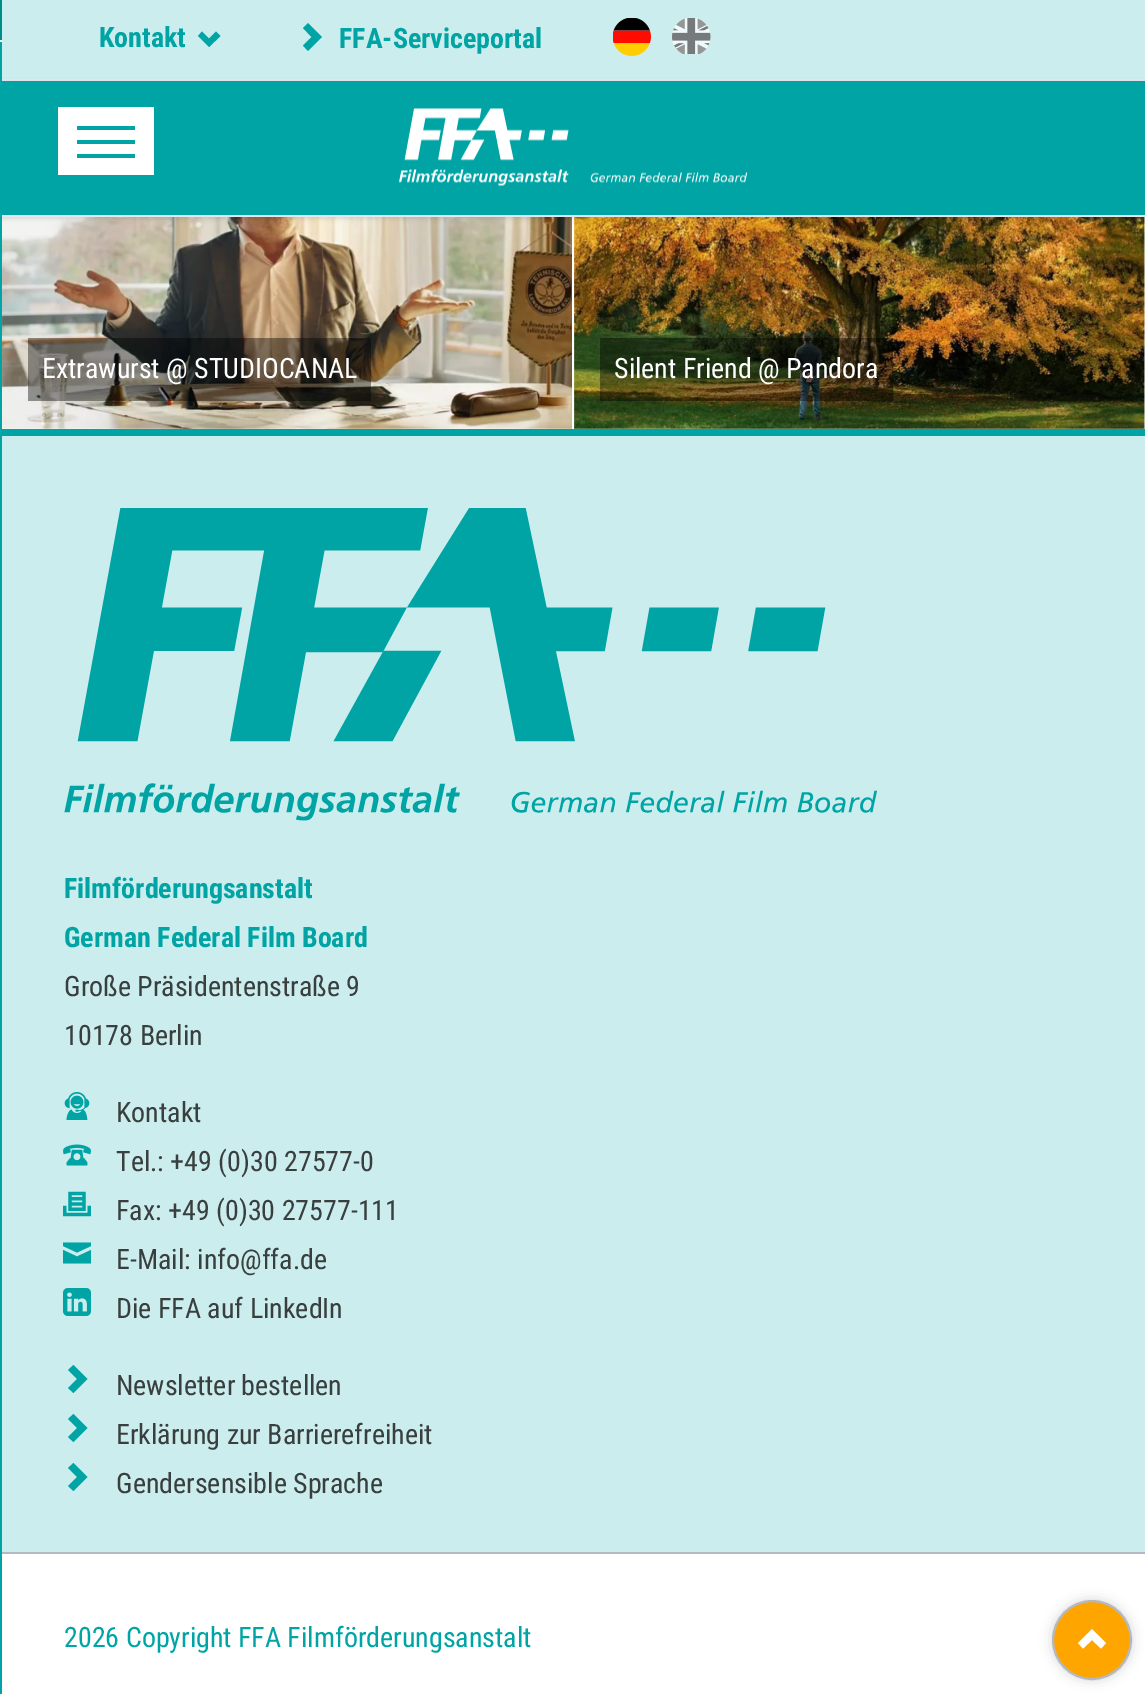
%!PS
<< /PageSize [1145 1694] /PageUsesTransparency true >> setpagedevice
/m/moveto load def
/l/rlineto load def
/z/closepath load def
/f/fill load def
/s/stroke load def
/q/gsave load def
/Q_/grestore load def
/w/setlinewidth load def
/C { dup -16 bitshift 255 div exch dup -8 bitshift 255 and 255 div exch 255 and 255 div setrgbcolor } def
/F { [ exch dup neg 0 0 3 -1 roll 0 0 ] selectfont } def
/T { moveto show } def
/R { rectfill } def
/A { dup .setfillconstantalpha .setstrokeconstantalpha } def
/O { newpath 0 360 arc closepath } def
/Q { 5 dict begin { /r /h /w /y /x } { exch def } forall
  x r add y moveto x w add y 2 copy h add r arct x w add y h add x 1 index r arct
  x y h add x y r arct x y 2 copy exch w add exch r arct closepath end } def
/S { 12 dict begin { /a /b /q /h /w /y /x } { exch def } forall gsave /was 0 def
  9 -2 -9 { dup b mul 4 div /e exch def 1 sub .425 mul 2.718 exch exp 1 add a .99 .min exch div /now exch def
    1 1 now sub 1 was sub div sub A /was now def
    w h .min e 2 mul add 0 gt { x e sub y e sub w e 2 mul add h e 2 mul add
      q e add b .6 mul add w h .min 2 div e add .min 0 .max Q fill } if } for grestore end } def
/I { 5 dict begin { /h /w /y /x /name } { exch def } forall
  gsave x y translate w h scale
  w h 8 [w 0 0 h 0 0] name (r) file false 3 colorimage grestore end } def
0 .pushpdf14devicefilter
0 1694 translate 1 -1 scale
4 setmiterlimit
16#FFFFFF C
0 0 1145 1694 R
16#E5E8EE C
0 79 1145 2 R
16#CCEDED C
2 0 1143 79 R
(4.rgb) 2 217 570 212 I
(5.rgb) 574 217 571 212 I
16#000000 C
0 82 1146 137 0 2 .1 S
16#E5E8EE C
0 215 1145 2 R
16#00A4A4 C
0 429 1145 7 R
16#B2B9C4 C
0 1552 1145 2 R
16#00A4A4 C
0 42 2 1652 R
16#008B8B C
0 0 2 42 R
16#FFFFFF C
0 40 2 2 R
/RobotoCondensed-Bold 28 F
16#00A4A4 C
(Kontakt) 99 47 T
220.5 36 m -4.5 -4.5 l -7 7 l -7 -7 l -4 4.5 l 11 11 l z f
308 23 m -5 5 l 8.5 9 l -8.5 8.5 l 5 5.5 l 14 -14 l z f
(FFA-Serviceportal) 339 48 T
(1.rgb) 613 18 38 38 I
(2.rgb) 672 18 39 36 I
2 81 1143 134 R
(3.rgb) 399 108 348 78 I
16#FFFFFF C
58 107 96 68 R
16#00A4A4 C
77 154 58 4 R
77 140 58 4 R
77 126 58 4 R
0.4 A
16#000000 C
28 338 343 63 R
/RobotoCondensed-Regular 28 F
1 A
16#FFFFFF C
(Extrawurst @ STUDIOCANAL) 42 378 T
0.4 A
16#000000 C
600 338 293 63 R
1 A
16#FFFFFF C
(Silent Friend @ Pandora) 614 378 T
16#CCEDED C
2 436 1143 1116 R
(6.rgb) 64 508 813 313 I
/RobotoCondensed-Bold 28 F
16#00A4A4 C
(Filmförderungsanstalt) 64 898 T
(German Federal Film Board) 64 947 T
/RobotoCondensed-Regular 28 F
16#393F3F C
(Große Präsidentenstraße 9) 64 996 T
(10178 Berlin) 64 1045 T
(7.rgb) 64 1092 26 28 I
(Kontakt) 116 1122 T
(8.rgb) 63 1144 28 22 I
(Tel.: +49 \(0\)30 27577-0) 116 1171 T
(9.rgb) 63 1191 28 26 I
(Fax: +49 \(0\)30 27577-111) 116 1220 T
16#00A4A4 C
77 1252.5 m 14 -6.5 l 0 -3.5 l -28 0 l 0 3.5 l z 77 1256.5 m -14 -6.5 l 0 13.5 l 28 0 l 0 -13.5 l z f
16#393F3F C
(E-Mail: info@ffa.de) 116 1269 T
(10.rgb) 63 1288 28 28 I
(Die FFA auf LinkedIn) 116 1318 T
16#00A4A4 C
73.5 1365 m -5.5 5 l 9 9 l -9 9 l 5.5 5 l 14 -14 l z f
16#393F3F C
(Newsletter bestellen) 116 1395 T
16#00A4A4 C
73.5 1414 m -5.5 5 l 9 9 l -9 9 l 5.5 5 l 14 -14 l z f
16#393F3F C
(Erklärung zur Barrierefreiheit) 116 1444 T
16#00A4A4 C
73.5 1463 m -5.5 5 l 9 9 l -9 9 l 5.5 5 l 14 -14 l z f
16#393F3F C
(Gendersensible Sprache) 116 1493 T
16#00A4A4 C
(2026 Copyright FFA Filmförderungsanstalt) 64 1647 T
16#000000 C
1052 1600 80 80 40 6 .15 S
16#FFA500 C
1092 1640 39 O q f Q_
16#B2B9C4 C
2 w
s
16#FFFFFF C
1078 1643 m 5 5.5 l 9 -8.5 l 9 8.5 l 5 -5.5 l -14 -14 l z f
.poppdf14devicefilter showpage
